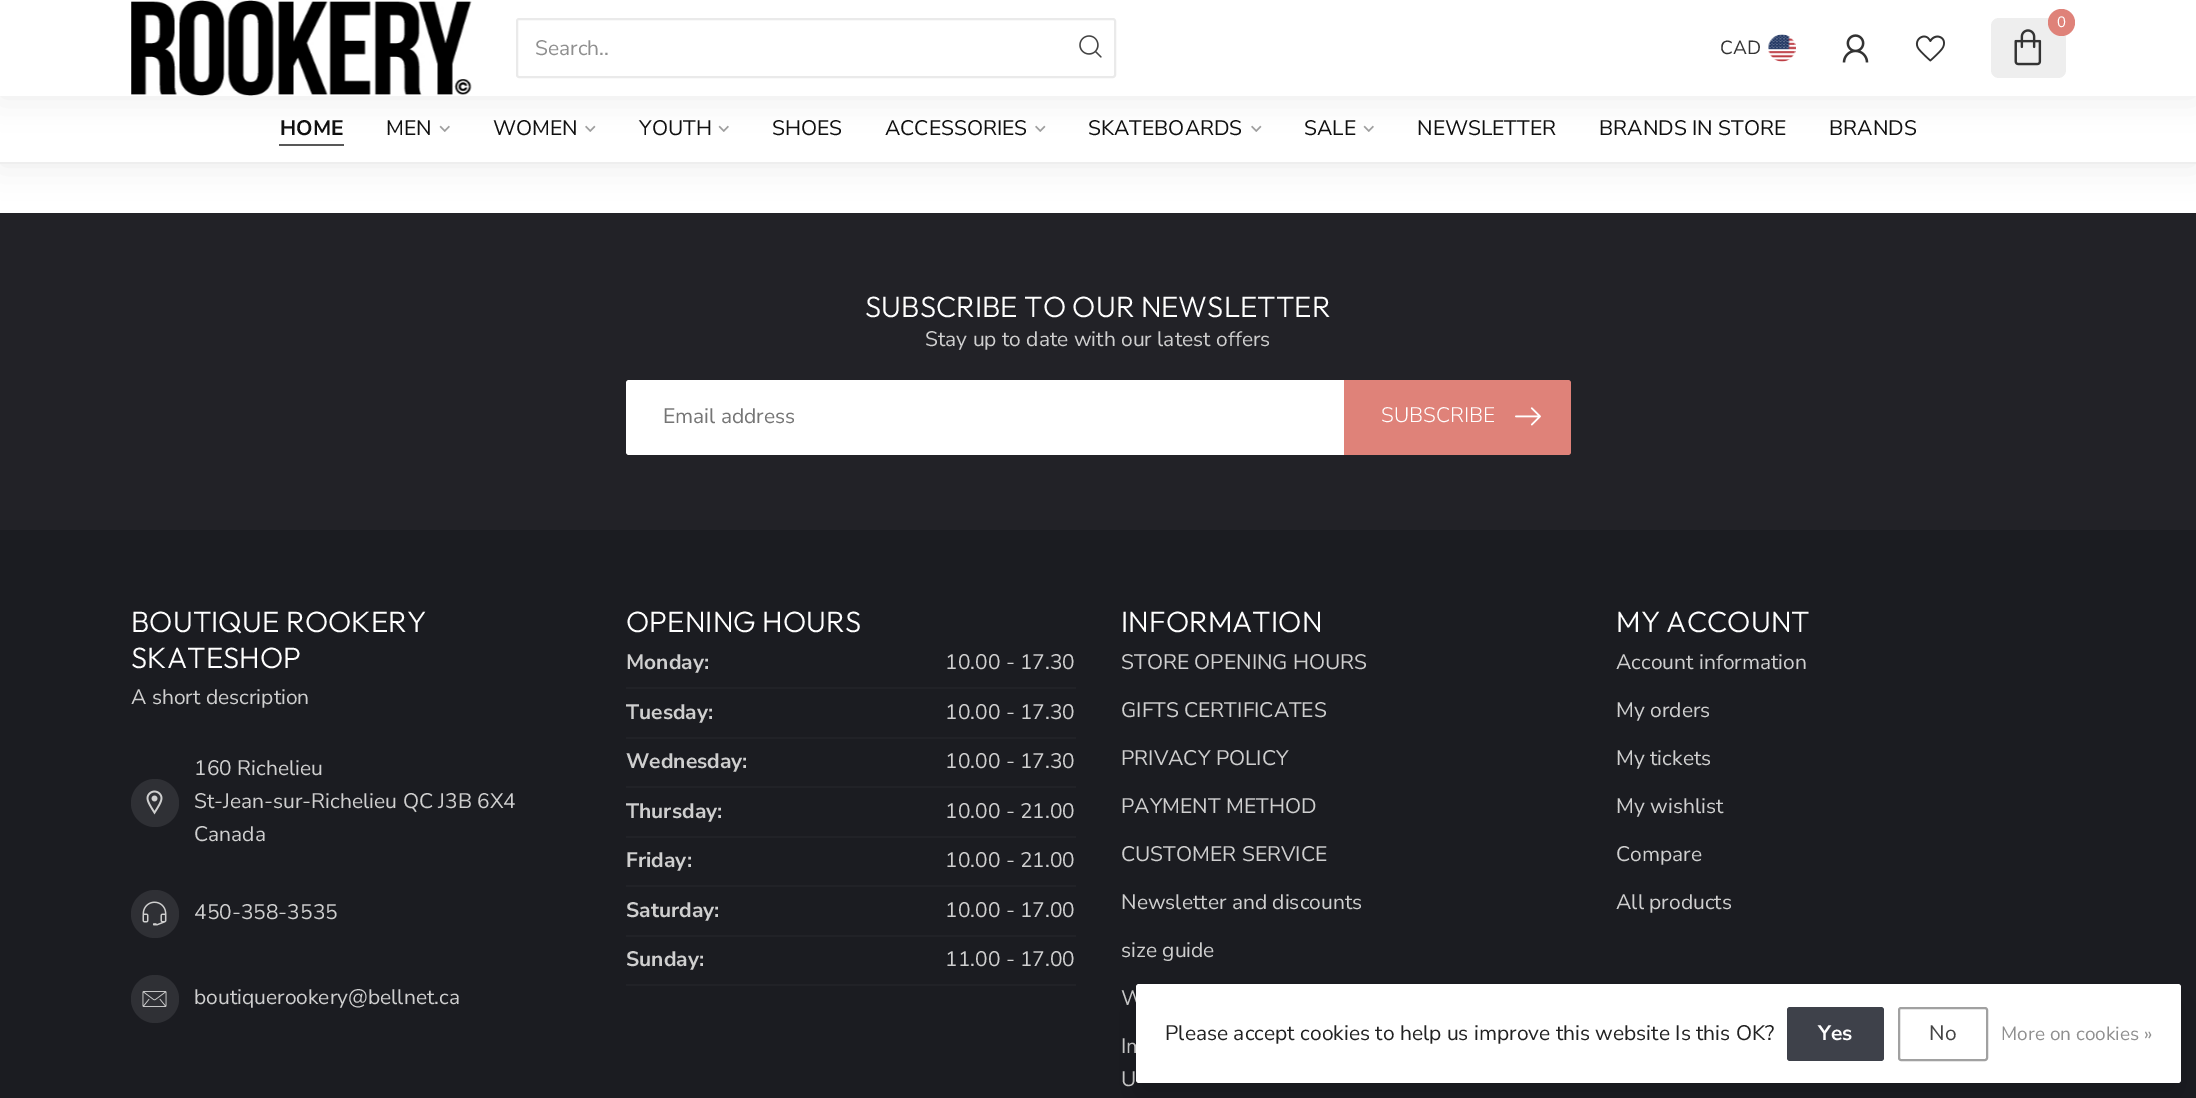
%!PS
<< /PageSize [2196 1098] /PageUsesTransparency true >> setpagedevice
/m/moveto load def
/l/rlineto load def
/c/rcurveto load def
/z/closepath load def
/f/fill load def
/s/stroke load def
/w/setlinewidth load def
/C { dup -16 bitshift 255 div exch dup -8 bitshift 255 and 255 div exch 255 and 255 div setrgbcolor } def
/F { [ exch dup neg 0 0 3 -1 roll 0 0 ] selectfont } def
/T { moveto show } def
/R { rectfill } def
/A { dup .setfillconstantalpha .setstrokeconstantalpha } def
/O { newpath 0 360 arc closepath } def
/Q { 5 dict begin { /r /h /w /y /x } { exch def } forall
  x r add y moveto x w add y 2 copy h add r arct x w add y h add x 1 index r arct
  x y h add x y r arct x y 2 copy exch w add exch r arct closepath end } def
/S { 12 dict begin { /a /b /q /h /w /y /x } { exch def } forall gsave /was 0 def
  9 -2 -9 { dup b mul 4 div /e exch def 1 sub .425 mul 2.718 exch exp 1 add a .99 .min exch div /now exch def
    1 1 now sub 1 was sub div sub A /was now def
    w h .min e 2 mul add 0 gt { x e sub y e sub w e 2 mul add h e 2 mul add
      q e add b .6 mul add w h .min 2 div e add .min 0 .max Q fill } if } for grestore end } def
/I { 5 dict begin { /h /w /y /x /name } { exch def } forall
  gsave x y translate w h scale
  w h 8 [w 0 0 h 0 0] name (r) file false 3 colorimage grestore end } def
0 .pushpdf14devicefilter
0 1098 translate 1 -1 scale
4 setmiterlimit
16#FFFFFF C
0 0 2196 1098 R
16#222227 C
0 213 2196 317 R
16#000000 C
0 96 2196 68 0 16.5 .08 S
16#FFFFFF C
0 96 2196 66 R
16#585858 C
279 144 65 2 R
(7.rgb) 439 125 11 7 I
(8.rgb) 585 125 11 7 I
(7.rgb) 718 125 11 7 I
(8.rgb) 1035 125 11 7 I
(8.rgb) 1251 125 11 7 I
(7.rgb) 1363 125 11 7 I
16#000000 C
0 -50 2196 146 0 16.5 .08 S
16#FFFFFF C
0 0 2196 96 R
(1.rgb) 131 0 341 96 I
16#EAEAEA C
2 w
517 19 598 58 2 Q s
/NunitoSans-Regular 21 F
16#8F8F8F C
(Search..) 535 55 T
(2.rgb) 1079 35 23 23 I
16#EEEEEE C
1991 18 75 60 8 Q f
16#DF8279 C
2061.5 22.5 13.5 O f
/NunitoSans-Regular 15 F
16#FFFFFF C
(0) 2057 27 T
(3.rgb) 2014 29 28 37 I
/NunitoSans-Regular 19 F
16#333333 C
(CAD) 1720 54 T
(4.rgb) 1768 34 28 28 I
(5.rgb) 1842 34 27 29 I
(6.rgb) 1915 35 30 27 I
16#EEEEEE C
0 162 2196 2 R
/NunitoSans-Bold 21 F
16#101010 C
(HOME) 280 135 T
/NunitoSans-Regular 21 F
(MEN) 386 135 T
(WOMEN) 493 135 T
(YOUTH) 639 135 T
(SHOES) 772 135 T
(ACCESSORIES) 885 135 T
(SKATEBOARDS) 1088 135 T
(SALE) 1304 135 T
(NEWSLETTER) 1417 135 T
(BRANDS IN STORE) 1599 135 T
(BRANDS) 1829 135 T
16#1B1C21 C
0 530 2196 568 R
/Outfit-Light 29.4 F
16#FFFFFF C
(SUBSCRIBE TO OUR NEWSLETTER) 865 317 T
/NunitoSans-Regular 21 F
16#CFCFCF C
(Stay up to date with our latest offers) 925 346 T
16#FFFFFF C
629 380 m 715 0 l 0 75 l -715 0 l -1.5 0 -3 -1.5 -3 -3 c 0 -69 l 0 -1.5 1.5 -3 3 -3 c z f
16#757575 C
(Email address) 663 423 T
16#DF8279 C
1344 380 m 224 0 l 1.5 0 3 1.5 3 3 c 0 69 l 0 1.5 -1.5 3 -3 3 c -224 0 l z f
/NunitoSans-Light 21 F
16#FFFFFF C
(SUBSCRIBE) 1381 422 T
(9.rgb) 1515 407 26 19 I
/Outfit-Light 29.4 F
(BOUTIQUE ROOKERY) 131 632 T
(SKATESHOP) 131 668 T
/NunitoSans-Regular 21 F
16#CFCFCF C
(A short description) 131 704 T
16#2F3035 C
155 803 24 O f
(10.rgb) 146 790 17 25 I
16#CFCFCF C
(160 Richelieu) 194 775 T
(St-Jean-sur-Richelieu QC J3B 6X4) 194 808 T
(Canada) 194 841 T
16#2F3035 C
155 914 24 O f
(11.rgb) 142 901 25 25 I
16#CFCFCF C
(450-358-3535) 194 919 T
16#2F3035 C
155 999 24 O f
(12.rgb) 142 991 25 16 I
16#CFCFCF C
(boutiquerookery@bellnet.ca) 194 1004 T
/Outfit-Light 29.4 F
16#FFFFFF C
(OPENING HOURS) 626 632 T
16#212227 C
626 687 450 2 R
/NunitoSans-Bold 21 F
16#CFCFCF C
(Monday:) 626 669 T
/NunitoSans-Regular 21 F
(10.00 - 17.30) 945 669 T
16#212227 C
626 737 450 2 R
/NunitoSans-Bold 21 F
16#CFCFCF C
(Tuesday:) 626 719 T
/NunitoSans-Regular 21 F
(10.00 - 17.30) 945 719 T
16#212227 C
626 786 450 2 R
/NunitoSans-Bold 21 F
16#CFCFCF C
(Wednesday:) 626 768 T
/NunitoSans-Regular 21 F
(10.00 - 17.30) 945 768 T
16#212227 C
626 836 450 2 R
/NunitoSans-Bold 21 F
16#CFCFCF C
(Thursday:) 626 818 T
/NunitoSans-Regular 21 F
(10.00 - 21.00) 945 818 T
16#212227 C
626 885 450 2 R
/NunitoSans-Bold 21 F
16#CFCFCF C
(Friday:) 626 867 T
/NunitoSans-Regular 21 F
(10.00 - 21.00) 945 867 T
16#212227 C
626 935 450 2 R
/NunitoSans-Bold 21 F
16#CFCFCF C
(Saturday:) 626 917 T
/NunitoSans-Regular 21 F
(10.00 - 17.00) 945 917 T
16#212227 C
626 984 450 2 R
/NunitoSans-Bold 21 F
16#CFCFCF C
(Sunday:) 626 966 T
/NunitoSans-Regular 21 F
(11.00 - 17.00) 945 966 T
/Outfit-Light 29.4 F
16#FFFFFF C
(INFORMATION) 1121 632 T
/NunitoSans-Regular 21 F
16#CFCFCF C
(STORE OPENING HOURS) 1121 669 T
(GIFTS CERTIFICATES) 1121 717 T
(PRIVACY POLICY) 1121 765 T
(PAYMENT METHOD) 1121 813 T
(CUSTOMER SERVICE) 1121 861 T
(Newsletter and discounts) 1121 909 T
(size guide) 1121 957 T
(W) 1121 1005 T
(Im) 1121 1053 T
(U) 1121 1086 T
/Outfit-Light 29.4 F
16#FFFFFF C
(MY ACCOUNT) 1616 632 T
/NunitoSans-Regular 21 F
16#CFCFCF C
(Account information) 1616 669 T
(My orders) 1616 717 T
(My tickets) 1616 765 T
(My wishlist) 1616 813 T
(Compare) 1616 861 T
(All products) 1616 909 T
16#000000 C
1136 999 1045 99 3 22.5 .15 S
16#FFFFFF C
1136 984 1045 99 3 Q f
16#222222 C
(Please accept cookies to help us improve this website Is this OK?) 1165 1040 T
16#3E414A C
1787 1007 97 54 3 Q f
/NunitoSans-Bold 21 F
16#FFFFFF C
(Yes) 1818 1040 T
16#A1A1A1 C
1899 1008 88 52 2 Q s
/NunitoSans-Regular 21 F
16#444444 C
(No) 1929 1040 T
/NunitoSans-Regular 19 F
16#8F8F8F C
(More on cookies ») 2001 1040 T
.poppdf14devicefilter showpage
